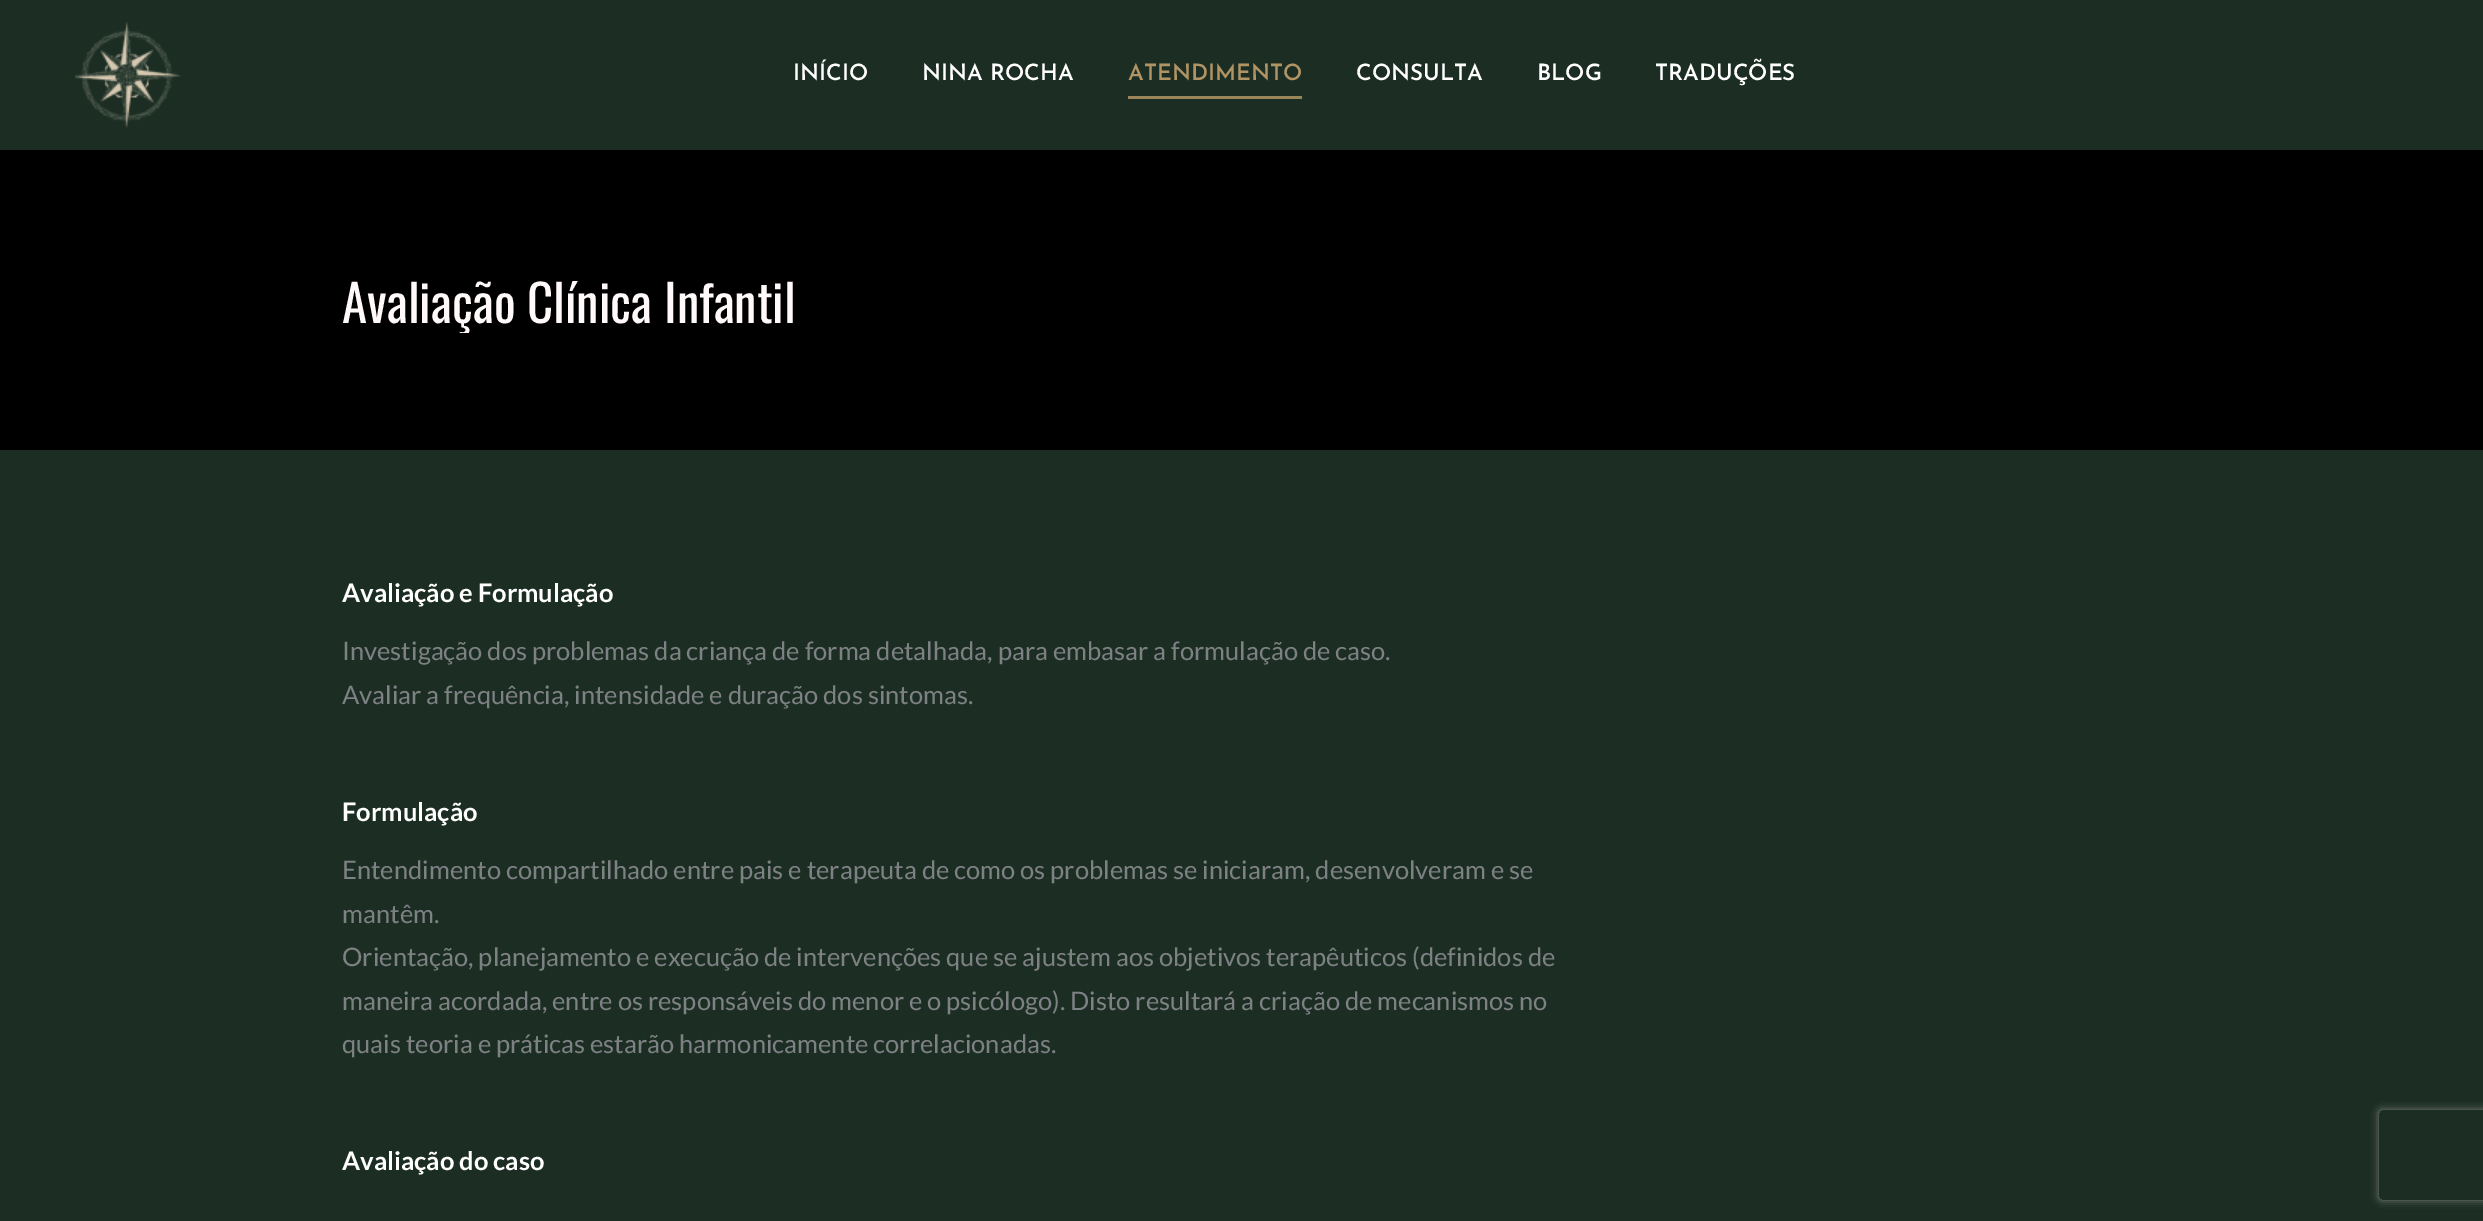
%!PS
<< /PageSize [2483 1221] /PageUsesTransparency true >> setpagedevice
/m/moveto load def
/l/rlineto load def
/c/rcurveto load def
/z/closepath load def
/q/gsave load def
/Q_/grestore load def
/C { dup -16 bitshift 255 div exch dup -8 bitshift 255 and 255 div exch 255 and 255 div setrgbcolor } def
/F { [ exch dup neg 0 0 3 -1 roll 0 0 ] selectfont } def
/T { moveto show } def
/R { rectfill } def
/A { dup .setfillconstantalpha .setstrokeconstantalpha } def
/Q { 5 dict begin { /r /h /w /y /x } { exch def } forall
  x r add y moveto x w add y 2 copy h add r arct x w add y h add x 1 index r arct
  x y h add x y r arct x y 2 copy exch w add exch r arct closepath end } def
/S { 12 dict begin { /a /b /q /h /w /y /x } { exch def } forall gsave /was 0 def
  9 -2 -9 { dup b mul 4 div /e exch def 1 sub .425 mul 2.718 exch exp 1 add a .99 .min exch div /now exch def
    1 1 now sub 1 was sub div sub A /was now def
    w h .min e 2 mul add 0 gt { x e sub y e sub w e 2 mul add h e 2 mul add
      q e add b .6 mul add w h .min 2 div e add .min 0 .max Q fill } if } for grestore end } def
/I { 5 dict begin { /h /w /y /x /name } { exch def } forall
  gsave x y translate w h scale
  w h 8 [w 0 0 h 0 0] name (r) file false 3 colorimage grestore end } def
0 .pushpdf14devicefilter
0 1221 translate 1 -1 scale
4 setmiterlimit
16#000000 C
0 0 2483 1221 R
16#1C2E24 C
0 0 2483 150 R
(1.rgb) 75 22 105 106 I
/JosefinSans-SemiBold 22.5 F
16#FFFFFF C
(INÍCIO) 793 80 T
(NINA ROCHA) 922 80 T
16#B09464 C
(ATENDIMENTO) 1128 80 T
16#9A855A C
1128 96 174 3 R
16#FFFFFF C
(CONSULTA) 1356 80 T
(BLOG) 1537 80 T
(TRADUÇÕES) 1655 80 T
q
342 267 455 66 rectclip
/Oswald-Regular 51 F
16#FFF9F9 C
(Avaliação Clínica Infantil) 342 323 T
Q_
16#1C2E24 C
0 450 2483 771 R
/Lato-Bold 25.5 F
16#FFFFFF C
(Avaliação e Formulação) 342 602 T
/Lato-Regular 25.5 F
16#7E8184 C
(Investigação dos problemas da criança de forma detalhada, para embasar a formulação de caso.) 342 660 T
(Avaliar a frequência, intensidade e duração dos sintomas.) 342 704 T
/Lato-Bold 25.5 F
16#FFFFFF C
(Formulação) 342 821 T
/Lato-Regular 25.5 F
16#7E8184 C
(Entendimento compartilhado entre pais e terapeuta de como os problemas se iniciaram, desenvolveram e se) 342 879 T
(mantêm.) 342 923 T
(Orientação, planejamento e execução de intervenções que se ajustem aos objetivos terapêuticos \(definidos de) 342 966 T
(maneira acordada, entre os responsáveis do menor e o psicólogo\). Disto resultará a criação de mecanismos no) 342 1010 T
(quais teoria e práticas estarão harmonicamente correlacionadas.) 342 1053 T
/Lato-Bold 25.5 F
16#FFFFFF C
(Avaliação do caso) 342 1170 T
q
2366 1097 m 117 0 l 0 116 l -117 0 l z 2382 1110 m 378 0 l 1.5 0 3 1.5 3 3 c 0 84 l 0 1.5 -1.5 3 -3 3 c -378 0 l -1.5 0 -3 -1.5 -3 -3 c 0 -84 l 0 -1.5 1.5 -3 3 -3 c z eoclip newpath
16#808080 C
2379 1110 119 90 3 4 1 S
Q_
.poppdf14devicefilter showpage
